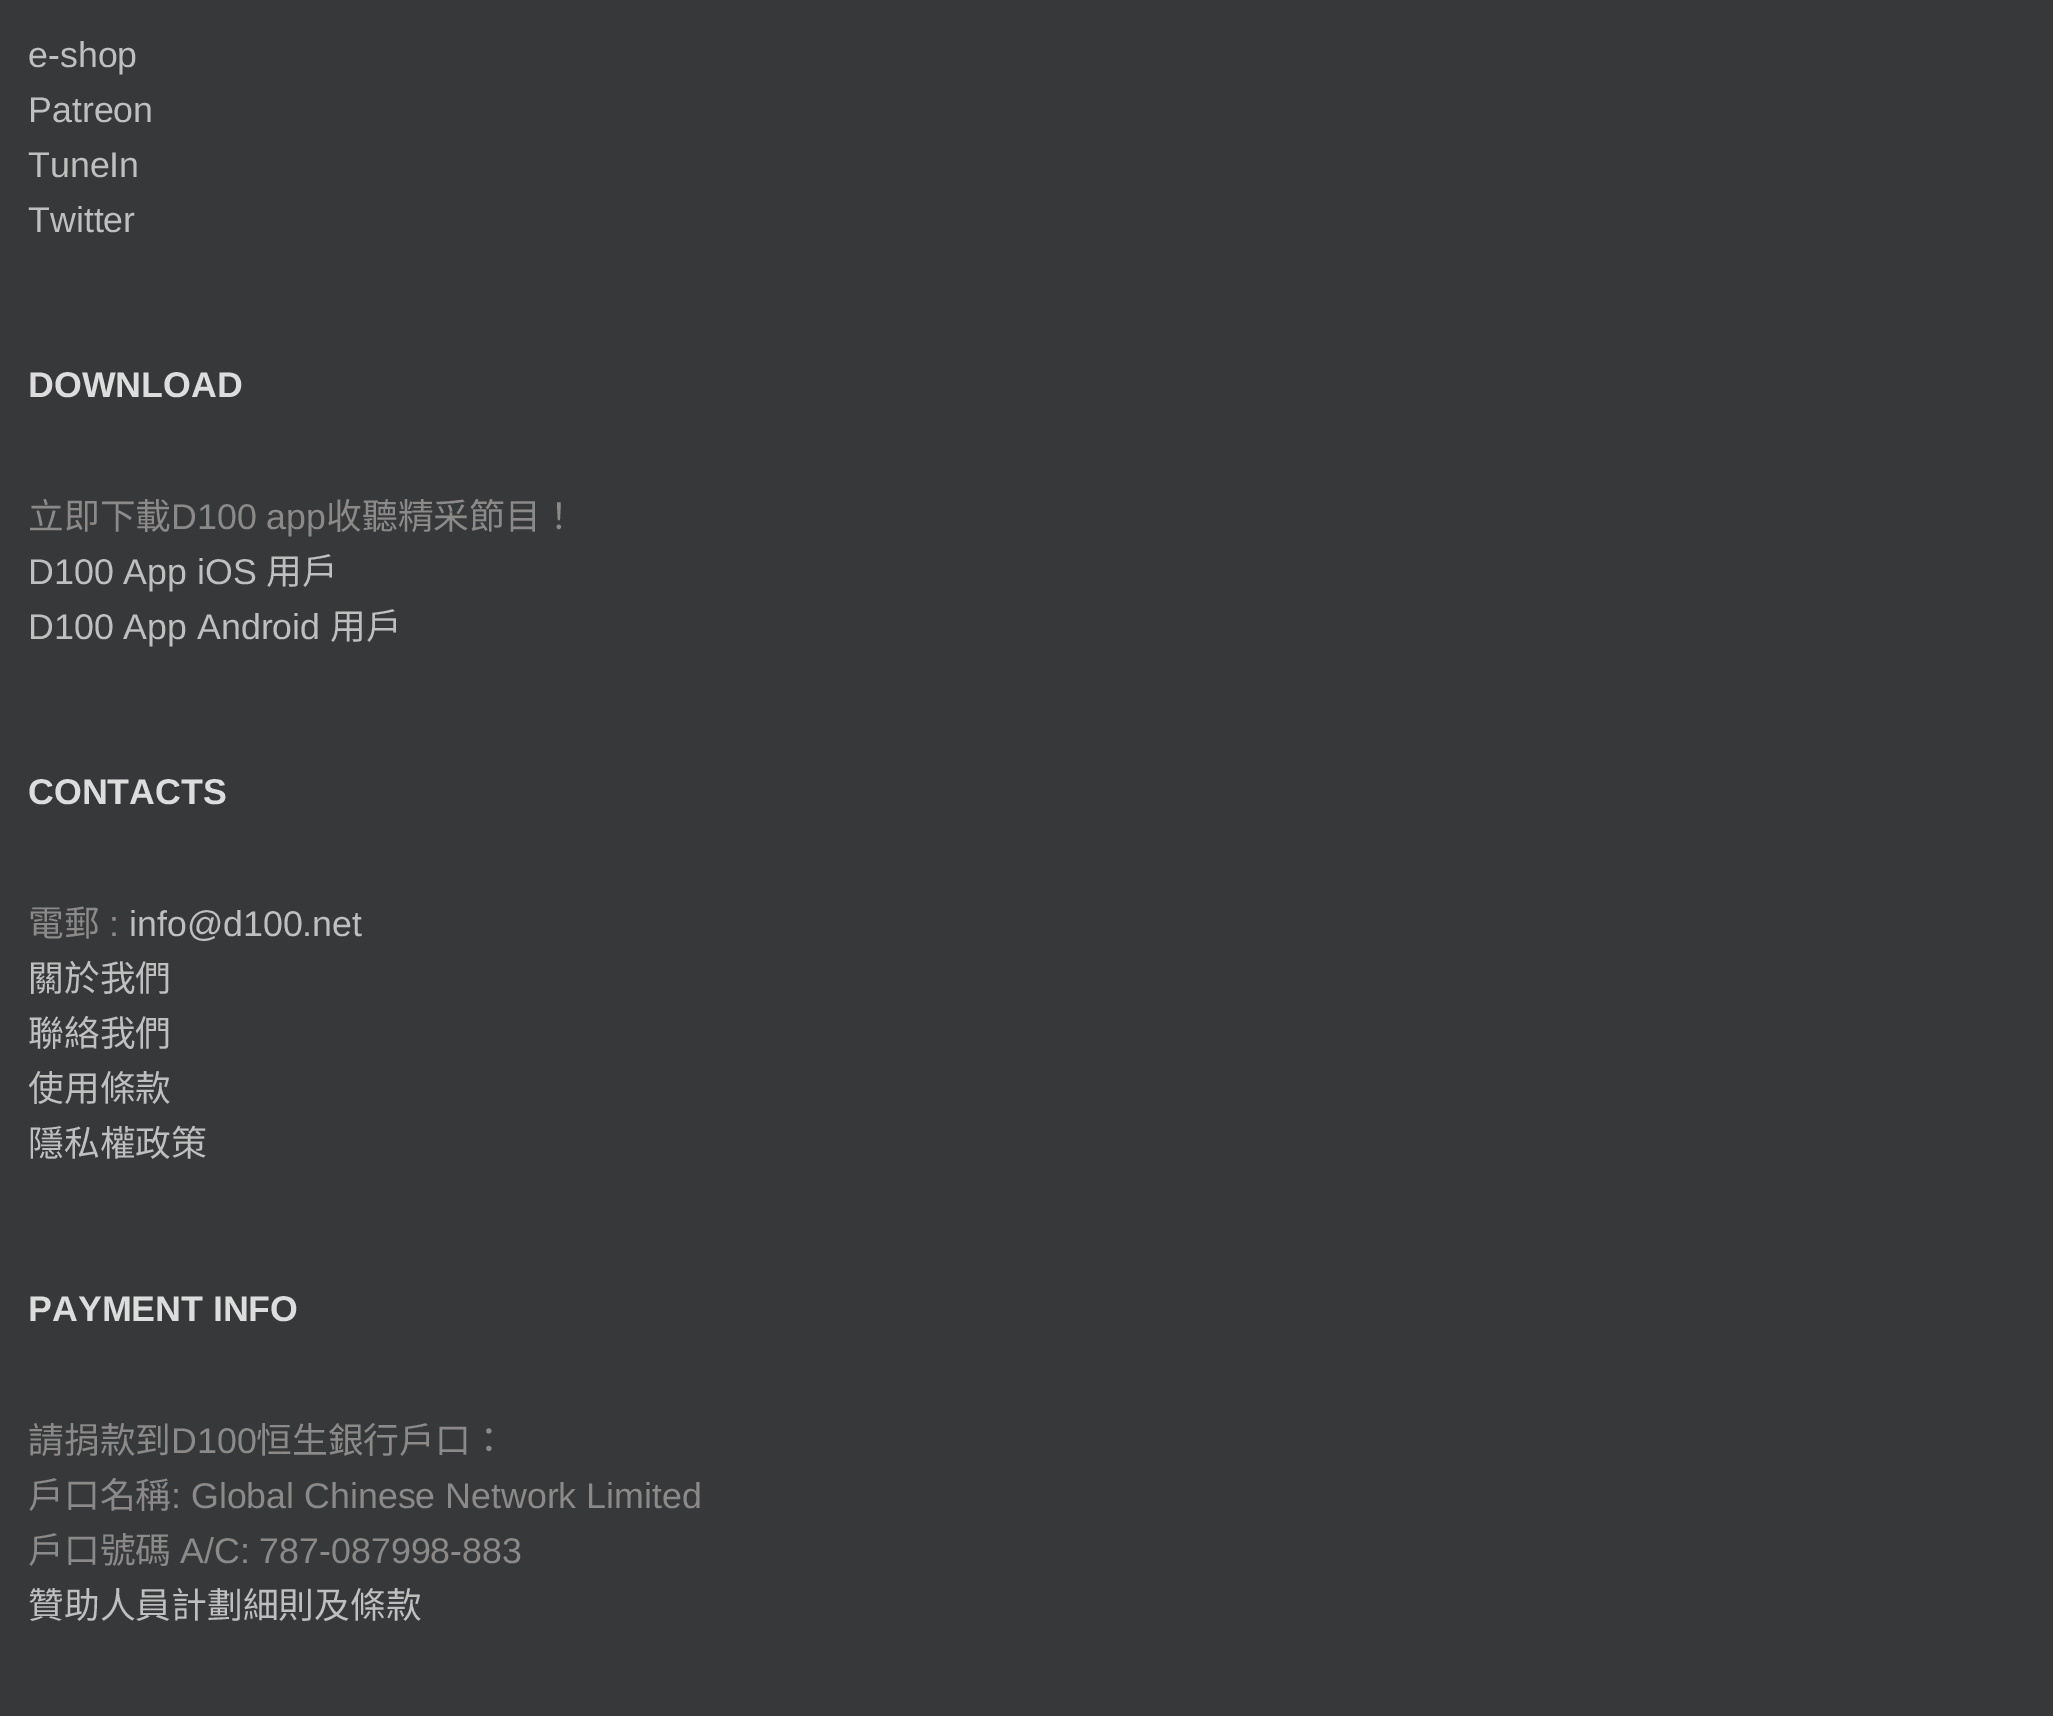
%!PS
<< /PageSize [2053 1716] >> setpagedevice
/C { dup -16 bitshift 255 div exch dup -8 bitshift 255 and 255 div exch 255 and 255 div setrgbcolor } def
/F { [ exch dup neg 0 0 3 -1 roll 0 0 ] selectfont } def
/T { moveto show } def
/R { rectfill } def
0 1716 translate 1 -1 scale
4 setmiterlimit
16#363839 C
0 0 2053 1716 R
/LiberationSans-Regular 35.75 F
16#BFBFBF C
(e-shop) 28 67 T
(Patreon) 28 122 T
(TuneIn) 28 177 T
(Twitter) 28 232 T
/LiberationSans-Bold 35.75 F
16#DDDDDD C
(DOWNLOAD) 28 397 T
/NotoSansCJKTC-Regular 35.75 F
16#8C8989 C
(立即下載) 28 529 T
/LiberationSans-Regular 35.75 F
(D100 app) 171 529 T
/NotoSansCJKTC-Regular 35.75 F
(收聽精采節目！) 326 529 T
/LiberationSans-Regular 35.75 F
16#BFBFBF C
(D100 App iOS) 28 584 T
/NotoSansCJKTC-Regular 35.75 F
(用戶) 266 584 T
/LiberationSans-Regular 35.75 F
(D100 App Android) 28 639 T
/NotoSansCJKTC-Regular 35.75 F
(用戶) 330 639 T
/LiberationSans-Bold 35.75 F
16#DDDDDD C
(CONTACTS) 28 804 T
/NotoSansCJKTC-Regular 35.75 F
16#8C8989 C
(電郵) 28 936 T
/LiberationSans-Regular 35.75 F
(:) 109 936 T
16#BFBFBF C
(info@d100.net) 129 936 T
/NotoSansCJKTC-Regular 35.75 F
(關於我們) 28 991 T
(聯絡我們) 28 1046 T
(使用條款) 28 1101 T
(隱私權政策) 28 1156 T
/LiberationSans-Bold 35.75 F
16#DDDDDD C
(PAYMENT INFO) 28 1321 T
/NotoSansCJKTC-Regular 35.75 F
16#8C8989 C
(請捐款到) 28 1453 T
/LiberationSans-Regular 35.75 F
(D100) 171 1453 T
/NotoSansCJKTC-Regular 35.75 F
(恒生銀行戶口：) 256 1453 T
(戶口名稱) 28 1508 T
/LiberationSans-Regular 35.75 F
(: Global Chinese Network Limited) 171 1508 T
/NotoSansCJKTC-Regular 35.75 F
(戶口號碼) 28 1563 T
/LiberationSans-Regular 35.75 F
(A/C: 787-087998-883) 180 1563 T
/NotoSansCJKTC-Regular 35.75 F
16#BFBFBF C
(贊助人員計劃細則及條款) 28 1618 T
showpage
